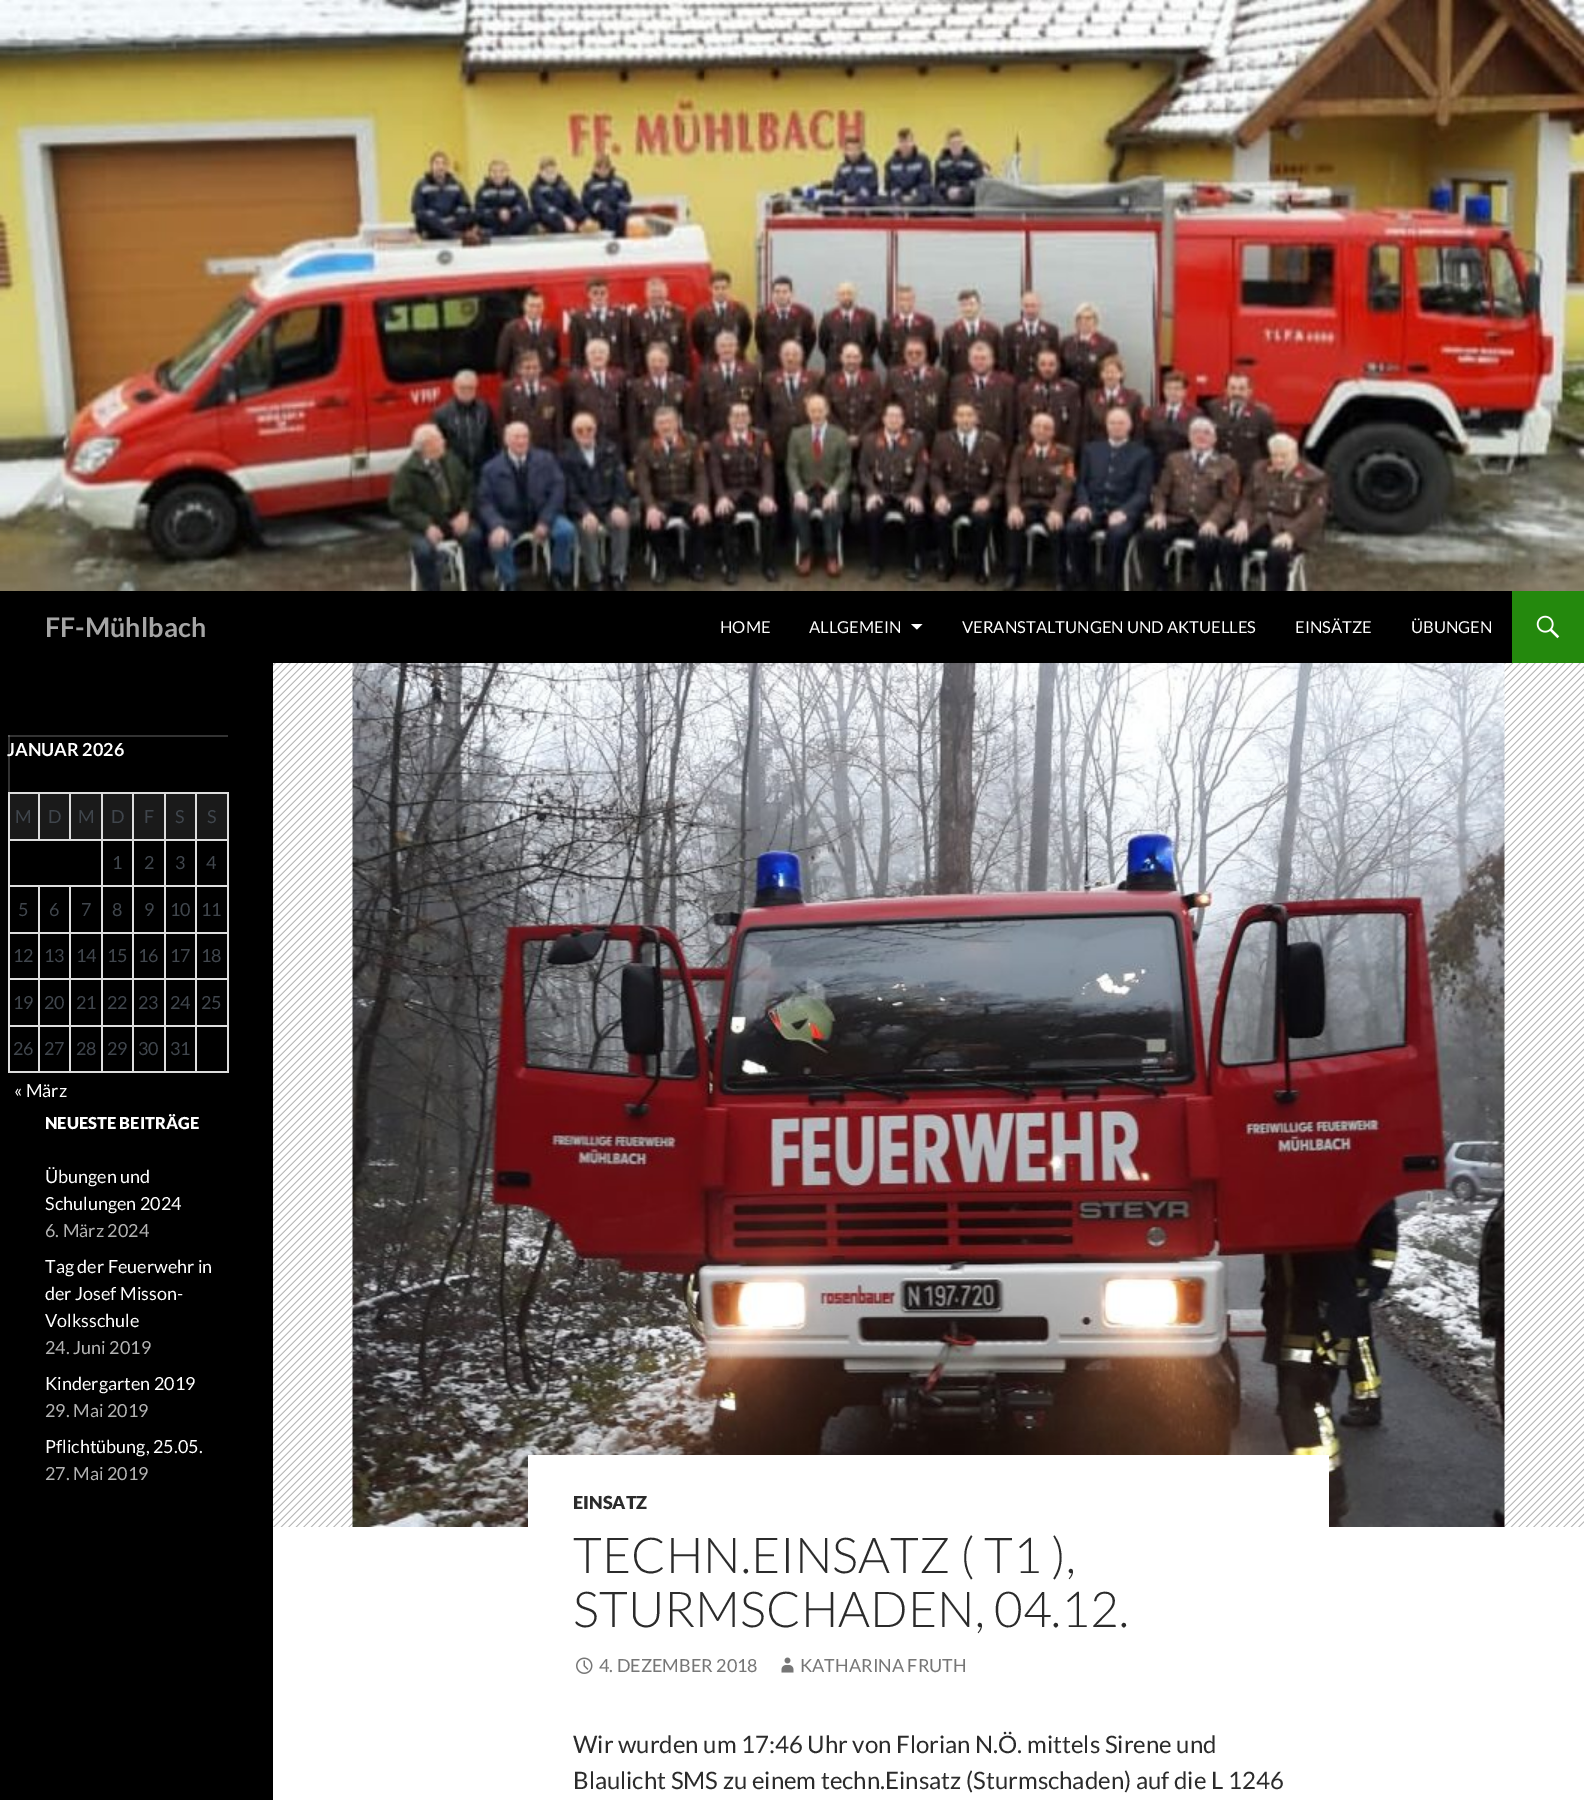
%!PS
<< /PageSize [1584 1800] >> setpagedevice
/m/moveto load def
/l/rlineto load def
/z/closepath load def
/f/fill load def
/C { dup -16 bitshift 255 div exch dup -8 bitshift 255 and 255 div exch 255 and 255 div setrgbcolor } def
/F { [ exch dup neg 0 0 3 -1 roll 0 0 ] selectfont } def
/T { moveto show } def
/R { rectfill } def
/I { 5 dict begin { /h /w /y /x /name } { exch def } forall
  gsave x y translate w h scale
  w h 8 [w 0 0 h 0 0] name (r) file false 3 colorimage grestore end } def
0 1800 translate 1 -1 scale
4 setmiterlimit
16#FFFFFF C
0 0 1584 1800 R
(1.rgb) 0 0 1584 591 I
16#000000 C
0 591 1512 72 R
/Lato-Bold 27 F
16#A5A5A5 C
(FF-Mühlbach) 45 637 T
/Lato-Regular 16.5 F
16#FFFFFF C
(HOME) 720 633 T
(ALLGEMEIN) 809 633 T
911 624 m 6 5.5 l 5.5 -5.5 l z f
(VERANSTALTUNGEN UND AKTUELLES) 962 633 T
(EINSÄTZE) 1295 633 T
(ÜBUNGEN) 1411 633 T
16#24890D C
1512 591 72 72 R
(2.rgb) 1536 615 24 24 I
16#000000 C
0 663 273 1137 R
16#333333 C
8 735 2 57 R
8 735 220 2 R
16#5C5C5C C
8 735 2 2 R
/Lato-Bold 18 F
16#FFFFFF C
(JANUAR 2026) 7 756 T
16#1A1A1A C
10 794 28 45 R
16#DDDDDD C
195 792 33 2 R
195 839 33 2 R
195 885 33 2 R
195 932 33 2 R
195 978 33 2 R
195 1025 33 2 R
227 1025 2 48 R
195 1071 33 2 R
195 1025 2 48 R
164 1025 33 2 R
195 978 2 48 R
164 978 33 2 R
195 932 2 48 R
164 932 33 2 R
195 885 2 48 R
164 885 33 2 R
195 839 2 48 R
164 839 33 2 R
195 792 2 48 R
164 792 33 2 R
164 1071 33 2 R
164 1025 2 48 R
132 1025 33 2 R
164 978 2 48 R
132 978 33 2 R
164 932 2 48 R
132 932 33 2 R
164 885 2 48 R
132 885 33 2 R
164 839 2 48 R
132 839 33 2 R
164 792 2 48 R
132 792 33 2 R
132 1071 33 2 R
132 1025 2 48 R
101 1025 33 2 R
132 978 2 48 R
101 978 33 2 R
132 932 2 48 R
101 932 33 2 R
132 885 2 48 R
101 885 33 2 R
132 839 2 48 R
101 839 33 2 R
132 792 2 48 R
101 792 33 2 R
101 1071 33 2 R
101 1025 2 48 R
69 1025 33 2 R
101 978 2 48 R
69 978 33 2 R
101 932 2 48 R
69 932 33 2 R
101 885 2 48 R
69 885 33 2 R
101 839 2 48 R
8 839 94 2 R
101 792 2 48 R
69 792 33 2 R
69 792 2 48 R
38 792 33 2 R
38 792 2 48 R
8 792 31 2 R
69 1071 33 2 R
69 1025 2 48 R
38 1025 33 2 R
69 978 2 48 R
38 978 33 2 R
69 932 2 48 R
38 932 33 2 R
69 885 2 48 R
38 885 33 2 R
38 1071 33 2 R
38 1025 2 48 R
8 1025 31 2 R
38 978 2 48 R
8 978 31 2 R
38 932 2 48 R
8 932 31 2 R
38 885 2 48 R
8 885 31 2 R
8 1071 31 2 R
8 1025 2 48 R
8 978 2 48 R
8 932 2 48 R
8 885 2 48 R
8 839 2 48 R
8 792 2 48 R
/Lato-Regular 18 F
16#40464D C
(M) 15 823 T
16#1A1A1A C
40 794 29 45 R
16#40464D C
(D) 48 823 T
16#1A1A1A C
71 794 30 45 R
16#40464D C
(M) 78 823 T
16#1A1A1A C
103 794 29 45 R
16#40464D C
(D) 111 823 T
16#1A1A1A C
134 794 30 45 R
16#40464D C
(F) 144 823 T
16#1A1A1A C
166 794 29 45 R
16#40464D C
(S) 175 823 T
16#1A1A1A C
197 794 30 45 R
16#DDDDDD C
227 978 2 48 R
227 932 2 48 R
227 885 2 48 R
227 839 2 48 R
227 792 2 48 R
16#40464D C
(S) 207 823 T
(1) 112 869 T
(2) 144 869 T
(3) 175 869 T
(4) 206 869 T
(5) 18 916 T
(6) 49 916 T
(7) 81 916 T
(8) 112 916 T
(9) 144 916 T
(10) 170 916 T
(11) 201 916 T
(12) 13 962 T
(13) 44 962 T
(14) 76 962 T
(15) 107 962 T
(16) 138 962 T
(17) 170 962 T
(18) 201 962 T
(19) 13 1009 T
(20) 44 1009 T
(21) 76 1009 T
(22) 107 1009 T
(23) 138 1009 T
(24) 170 1009 T
(25) 201 1009 T
(26) 13 1055 T
(27) 44 1055 T
(28) 76 1055 T
(29) 107 1055 T
(30) 138 1055 T
(31) 170 1055 T
16#FFFFFF C
(« März) 14 1097 T
/Lato-Black 16.5 F
(NEUESTE BEITRÄGE) 45 1129 T
/Lato-Regular 18 F
(Übungen und) 45 1183 T
(Schulungen 2024) 45 1210 T
16#B3B3B3 C
(6. März 2024) 45 1237 T
16#FFFFFF C
(Tag der Feuerwehr in) 45 1273 T
(der Josef Misson-) 45 1300 T
(Volksschule) 45 1327 T
16#B3B3B3 C
(24. Juni 2019) 45 1354 T
16#FFFFFF C
(Kindergarten 2019) 45 1390 T
16#B3B3B3 C
(29. Mai 2019) 45 1417 T
16#FFFFFF C
(Pflichtübung, 25.05.) 45 1453 T
16#B3B3B3 C
(27. Mai 2019) 45 1480 T
16#B2B2B2 C
273 663 1311 864 R
(3.rgb) 273 663 1311 864 I
(4.rgb) 352 663 1153 864 I
16#FFFFFF C
528 1455 801 72 R
/Lato-Black 18 F
16#2B2B2B C
(EINSATZ) 573 1509 T
/Lato-Light 49.5 F
(TECHN.EINSATZ \( T1 \),) 573 1573 T
(STURMSCHADEN, 04.12.) 573 1627 T
(5.rgb) 576 1657 17 17 I
/Lato-Regular 18 F
16#767676 C
(4. DEZEMBER 2018) 599 1672 T
(6.rgb) 781 1657 13 16 I
(KATHARINA FRUTH) 800 1672 T
/Lato-Regular 24 F
16#2B2B2B C
(Wir wurden um 17:46 Uhr von Florian N.Ö. mittels Sirene und) 573 1753 T
(Blaulicht SMS zu einem techn.Einsatz \(Sturmschaden\) auf die L 1246) 573 1789 T
showpage
